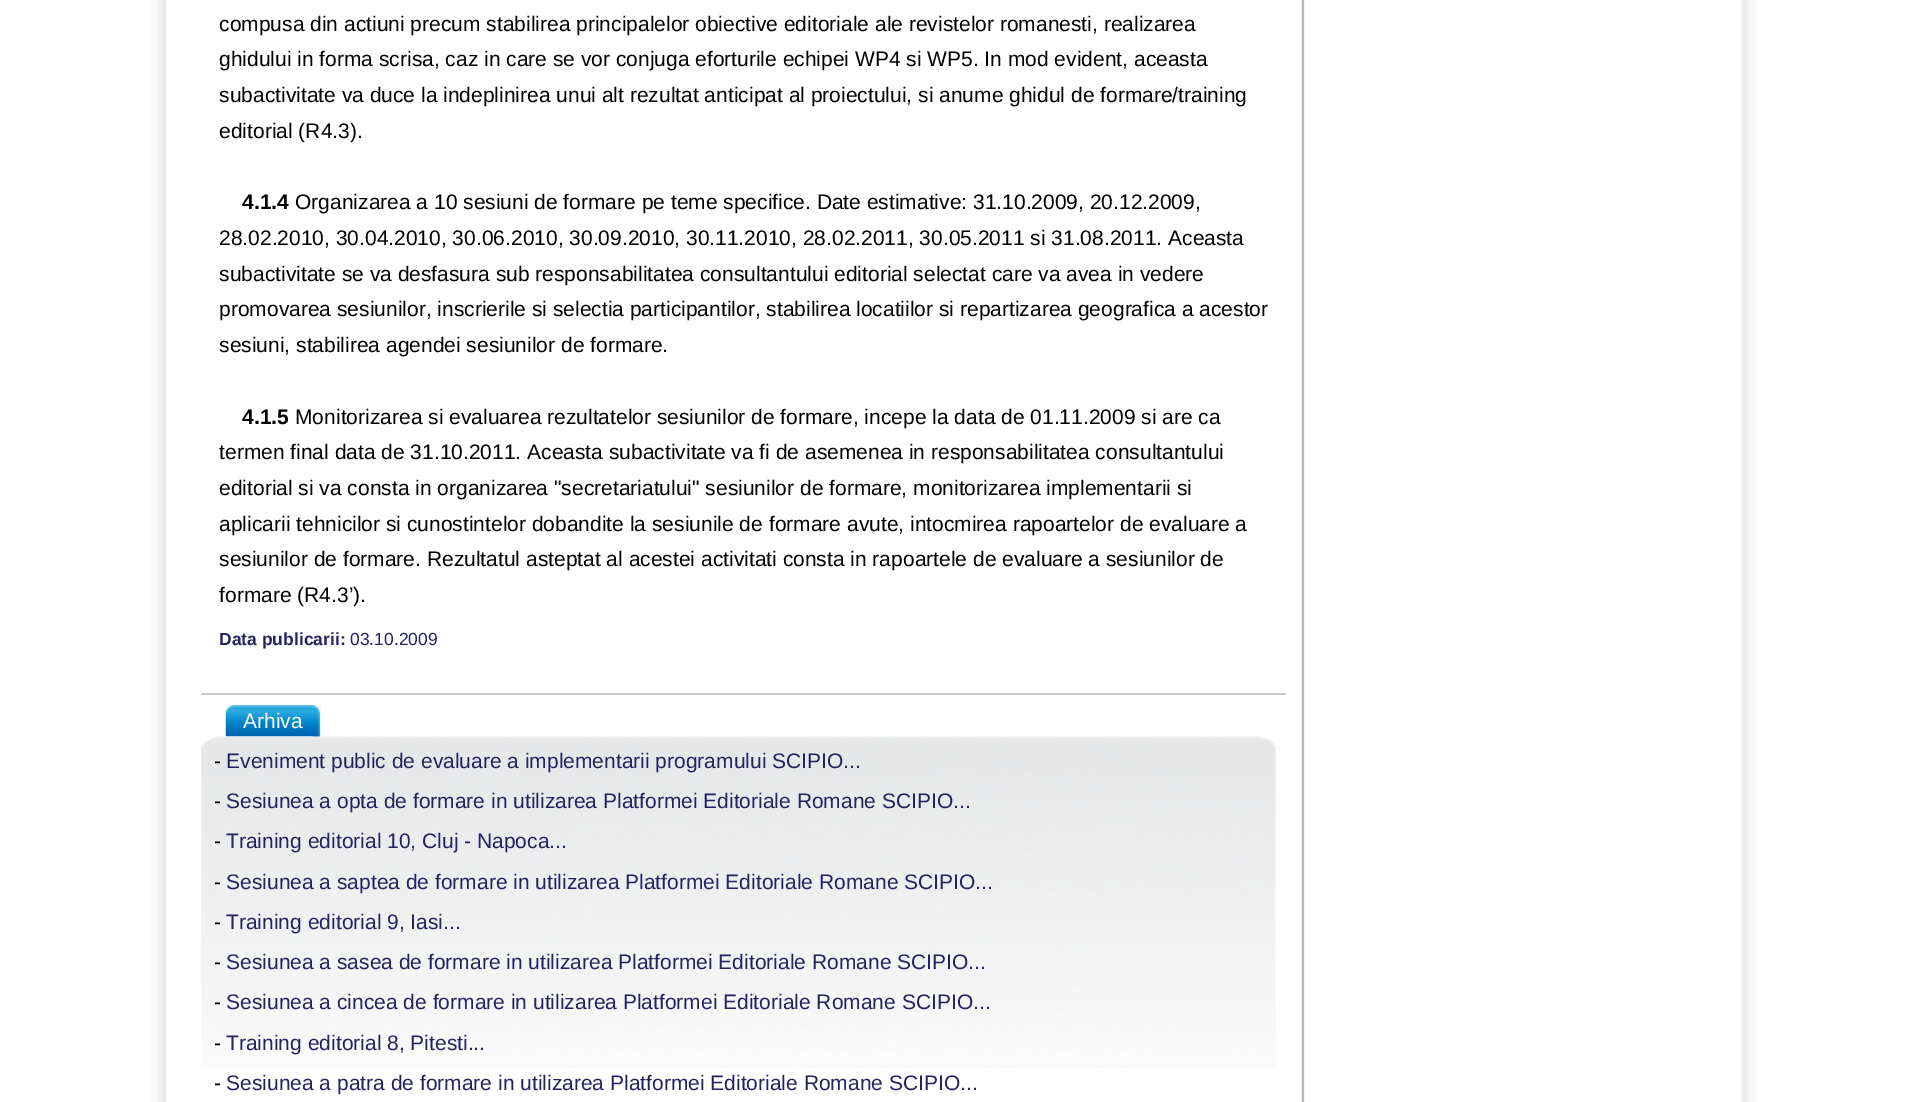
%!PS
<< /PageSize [1907 1102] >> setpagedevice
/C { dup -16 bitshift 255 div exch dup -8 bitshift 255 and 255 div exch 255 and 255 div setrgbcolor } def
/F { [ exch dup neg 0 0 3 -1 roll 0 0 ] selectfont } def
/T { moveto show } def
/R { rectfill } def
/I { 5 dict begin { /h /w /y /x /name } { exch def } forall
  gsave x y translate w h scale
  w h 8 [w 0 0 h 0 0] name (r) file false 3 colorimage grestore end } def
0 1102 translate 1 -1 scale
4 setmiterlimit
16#FFFFFF C
0 0 1907 1102 R
(1.rgb) 151 0 1606 1102 I
(2.rgb) 166 0 1139 1102 I
16#C9C8C8 C
201 693 1085 2 R
/LiberationSans-Regular 21 F
16#000000 C
(compusa din actiuni precum stabilirea principalelor obiective editoriale ale revistelor romanesti, realizarea) 219 31 T
(ghidului in forma scrisa, caz in care se vor conjuga eforturile echipei WP4 si WP5. In mod evident, aceasta) 219 66 T
(subactivitate va duce la indeplinirea unui alt rezultat anticipat al proiectului, si anume ghidul de formare/training) 219 102 T
(editorial \(R4.3\).) 219 138 T
/LiberationSans-Bold 21 F
(4.1.4) 242 209 T
/LiberationSans-Regular 21 F
(Organizarea a 10 sesiuni de formare pe teme specifice. Date estimative: 31.10.2009, 20.12.2009,) 295 209 T
(28.02.2010, 30.04.2010, 30.06.2010, 30.09.2010, 30.11.2010, 28.02.2011, 30.05.2011 si 31.08.2011. Aceasta) 219 245 T
(subactivitate se va desfasura sub responsabilitatea consultantului editorial selectat care va avea in vedere) 219 281 T
(promovarea sesiunilor, inscrierile si selectia participantilor, stabilirea locatiilor si repartizarea geografica a acestor) 219 316 T
(sesiuni, stabilirea agendei sesiunilor de formare.) 219 352 T
/LiberationSans-Bold 21 F
(4.1.5) 242 424 T
/LiberationSans-Regular 21 F
(Monitorizarea si evaluarea rezultatelor sesiunilor de formare, incepe la data de 01.11.2009 si are ca) 295 424 T
(termen final data de 31.10.2011. Aceasta subactivitate va fi de asemenea in responsabilitatea consultantului) 219 459 T
(editorial si va consta in organizarea "secretariatului" sesiunilor de formare, monitorizarea implementarii si) 219 495 T
(aplicarii tehnicilor si cunostintelor dobandite la sesiunile de formare avute, intocmirea rapoartelor de evaluare a) 219 531 T
(sesiunilor de formare. Rezultatul asteptat al acestei activitati consta in rapoartele de evaluare a sesiunilor de) 219 566 T
(formare \(R4.3’\).) 219 602 T
/LiberationSans-Bold 17.5 F
16#262262 C
(Data publicarii:) 219 645 T
/LiberationSans-Regular 17.5 F
(03.10.2009) 350 645 T
(5.rgb) 201 736 1075 332 I
(3.rgb) 225 705 96 32 I
(4.rgb) 313 705 8 32 I
/LiberationSans-Regular 21 F
16#FFFFFF C
(Arhiva) 243 728 T
16#000000 C
(-) 214 768 T
16#262262 C
(Eveniment public de evaluare a implementarii programului SCIPIO...) 226 768 T
16#000000 C
(-) 214 808 T
16#262262 C
(Sesiunea a opta de formare in utilizarea Platformei Editoriale Romane SCIPIO...) 226 808 T
16#000000 C
(-) 214 848 T
16#262262 C
(Training editorial 10, Cluj - Napoca...) 226 848 T
16#000000 C
(-) 214 889 T
16#262262 C
(Sesiunea a saptea de formare in utilizarea Platformei Editoriale Romane SCIPIO...) 226 889 T
16#000000 C
(-) 214 929 T
16#262262 C
(Training editorial 9, Iasi...) 226 929 T
16#000000 C
(-) 214 969 T
16#262262 C
(Sesiunea a sasea de formare in utilizarea Platformei Editoriale Romane SCIPIO...) 226 969 T
16#000000 C
(-) 214 1009 T
16#262262 C
(Sesiunea a cincea de formare in utilizarea Platformei Editoriale Romane SCIPIO...) 226 1009 T
16#000000 C
(-) 214 1050 T
16#262262 C
(Training editorial 8, Pitesti...) 226 1050 T
16#000000 C
(-) 214 1090 T
16#262262 C
(Sesiunea a patra de formare in utilizarea Platformei Editoriale Romane SCIPIO...) 226 1090 T
showpage
